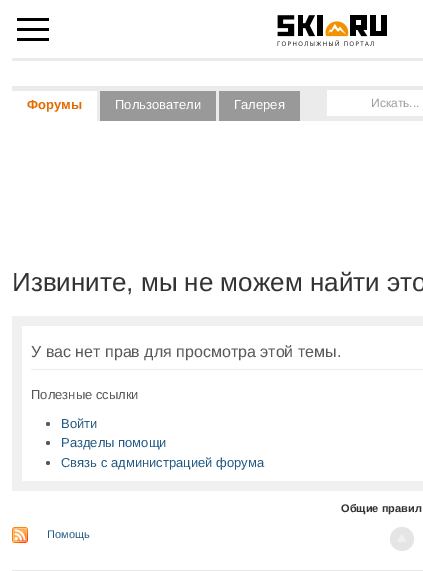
%!PS
<< /PageSize [423 571] >> setpagedevice
/f/fill load def
/C { dup -16 bitshift 255 div exch dup -8 bitshift 255 and 255 div exch 255 and 255 div setrgbcolor } def
/F { [ exch dup neg 0 0 3 -1 roll 0 0 ] selectfont } def
/T { moveto show } def
/R { rectfill } def
/O { newpath 0 360 arc closepath } def
/I { 5 dict begin { /h /w /y /x /name } { exch def } forall
  gsave x y translate w h scale
  w h 8 [w 0 0 h 0 0] name (r) file false 3 colorimage grestore end } def
0 571 translate 1 -1 scale
4 setmiterlimit
16#FFFFFF C
0 0 423 571 R
16#000000 C
17 18 32 3 R
17 28 32 3 R
17 38 32 3 R
(1.rgb) 277 15 110 31 I
16#EBEBEB C
12 58 411 3 R
12 86 411 35 R
16#FFFFFF C
12 91 85 30 R
/LiberationSans-Bold 13 F
16#E26B00 C
(Форумы) 27 109 T
16#999999 C
100 91 116 30 R
/LiberationSans-Regular 13 F
16#FFFFFF C
(Пользователи) 115 109 T
16#999999 C
219 91 81 30 R
16#FFFFFF C
(Галерея) 234 109 T
327 90 96 26 R
/LiberationSans-Regular 12 F
16#9F9F9F C
(Искать...) 371 107 T
/LiberationSans-Regular 26 F
16#333333 C
(Извините, мы не можем найти это) 12 291 T
16#F0F0F0 C
12 316 411 175 R
16#FFFFFF C
22 326 401 155 R
16#ECECEC C
31 369 392 1 R
/LiberationSans-Regular 16 F
16#595959 C
(У вас нет прав для просмотра этой темы.) 31 357 T
/LiberationSans-Regular 13 F
(Полезные ссылки) 31 399 T
16#5A5A5A C
48 424 2 O f
16#225985 C
(Войти) 61 428 T
16#5A5A5A C
48 443 2 O f
16#225985 C
(Разделы помощи) 61 447 T
16#5A5A5A C
48 463 2 O f
16#225985 C
(Связь с администрацией форума) 61 467 T
/LiberationSans-Bold 11 F
16#333333 C
(Общие правил) 341 512 T
(2.rgb) 12 527 16 16 I
/LiberationSans-Regular 11 F
16#225985 C
(Помощь) 47 538 T
16#E5E5E5 C
402 539 12 O f
(3.rgb) 397 534 9 8 I
16#E7E7E7 C
12 570 411 1 R
showpage
